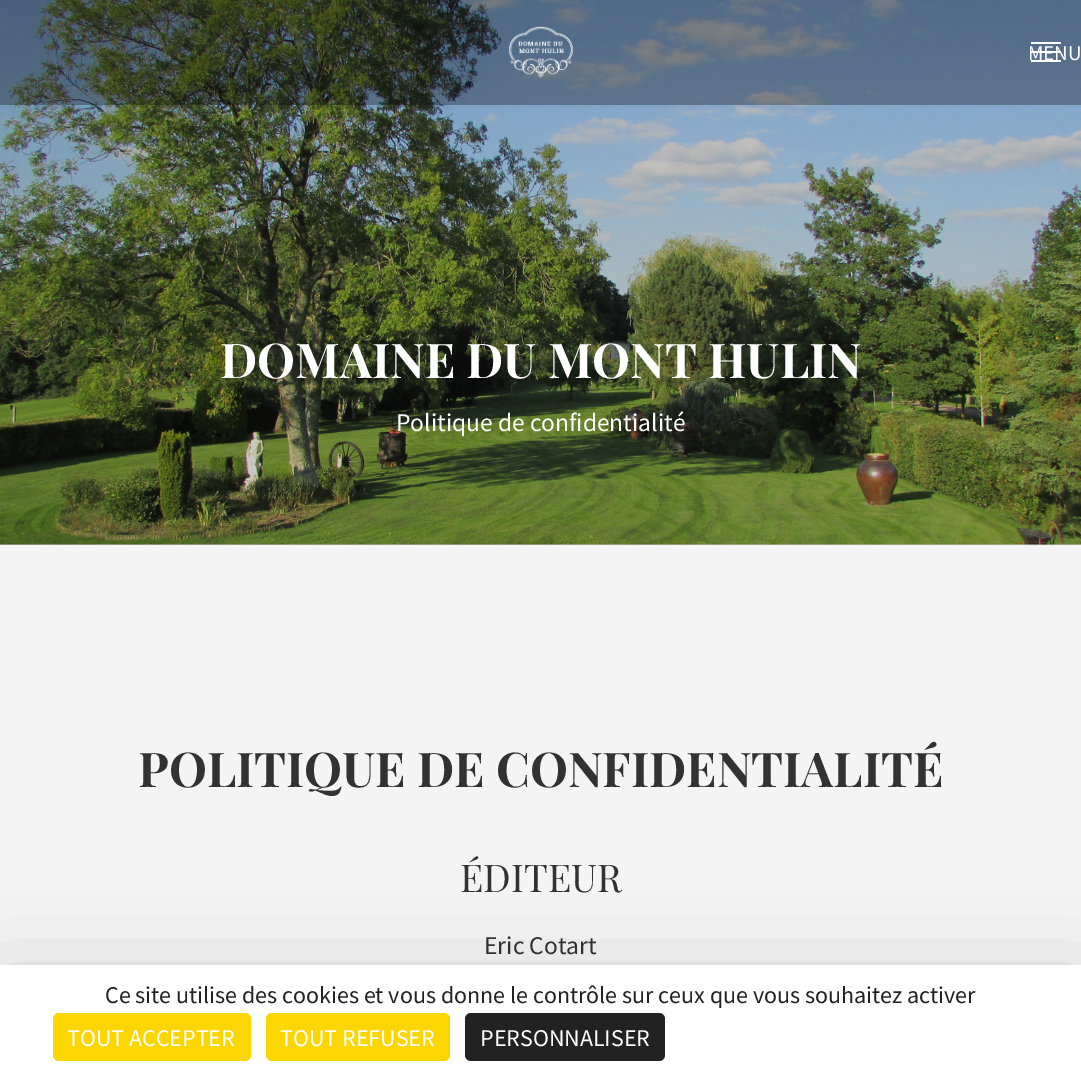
%!PS
<< /PageSize [1081 1075] /PageUsesTransparency true >> setpagedevice
/f/fill load def
/C { dup -16 bitshift 255 div exch dup -8 bitshift 255 and 255 div exch 255 and 255 div setrgbcolor } def
/F { [ exch dup neg 0 0 3 -1 roll 0 0 ] selectfont } def
/T { moveto show } def
/R { rectfill } def
/A { dup .setfillconstantalpha .setstrokeconstantalpha } def
/Q { 5 dict begin { /r /h /w /y /x } { exch def } forall
  x r add y moveto x w add y 2 copy h add r arct x w add y h add x 1 index r arct
  x y h add x y r arct x y 2 copy exch w add exch r arct closepath end } def
/S { 12 dict begin { /a /b /q /h /w /y /x } { exch def } forall gsave /was 0 def
  9 -2 -9 { dup b mul 4 div /e exch def 1 sub .425 mul 2.718 exch exp 1 add a .99 .min exch div /now exch def
    1 1 now sub 1 was sub div sub A /was now def
    w h .min e 2 mul add 0 gt { x e sub y e sub w e 2 mul add h e 2 mul add
      q e add b .6 mul add w h .min 2 div e add .min 0 .max Q fill } if } for grestore end } def
/I { 5 dict begin { /h /w /y /x /name } { exch def } forall
  gsave x y translate w h scale
  w h 8 [w 0 0 h 0 0] name (r) file false 3 colorimage grestore end } def
0 .pushpdf14devicefilter
0 1075 translate 1 -1 scale
4 setmiterlimit
16#F4F4F4 C
0 0 1081 1075 R
16#C3C3C3 C
0 544 1081 1 R
(2.rgb) 0 0 1081 545 I
0.3 A
16#000000 C
0 0 1081 105 R
1 A
(1.rgb) 508 26 65 52 I
16#FFFFFF C
1031 42 30 2 R
1031 51 30 2 R
1031 60 30 2 R
/SourceSansPro-Regular 21 F
(MENU) 1028 60 T
/PlayfairDisplay-Bold 48 F
(DOMAINE DU MONT HULIN) 220 378 T
/SourceSansPro-Regular 25.5 F
(Politique de confidentialité) 396 431 T
/PlayfairDisplay-Bold 48 F
16#323232 C
(POLITIQUE DE CONFIDENTIALITÉ) 138 787 T
/PlayfairDisplay-Regular 38.25 F
(ÉDITEUR) 460 892 T
/SourceSansPro-Regular 25.5 F
(Eric Cotart) 484 954 T
16#000000 C
0 995 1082 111 0 45 .25 S
16#FFFFFF C
0 965 1081 110 R
/SourceSansPro-Regular 24 F
16#222222 C
(Ce site utilise des cookies et vous donne le contrôle sur ceux que vous souhaitez activer) 105 1003 T
16#FBD600 C
53 1013 198 48 6 Q f
16#FFFFFF C
(TOUT ACCEPTER) 67 1046 T
16#FBD600 C
266 1013 184 48 6 Q f
16#FFFFFF C
(TOUT REFUSER) 280 1046 T
16#222222 C
465 1013 200 48 6 Q f
16#FFFFFF C
(PERSONNALISER) 480 1046 T
.poppdf14devicefilter showpage
